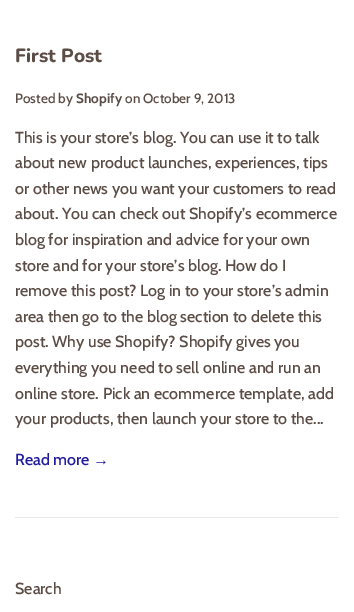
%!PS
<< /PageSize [354 612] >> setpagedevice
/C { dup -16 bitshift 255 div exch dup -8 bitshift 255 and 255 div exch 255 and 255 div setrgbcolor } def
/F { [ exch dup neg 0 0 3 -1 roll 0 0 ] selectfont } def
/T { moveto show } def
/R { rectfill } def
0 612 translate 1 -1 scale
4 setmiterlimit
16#FFFFFF C
0 0 354 612 R
/Nunito-ExtraBold 19 F
16#5B4C45 C
(First Post) 15 62 T
/Cabin-Medium 13.5 F
(Posted by) 15 103 T
/Cabin-Bold 13.5 F
(Shopify) 76 103 T
/Cabin-Medium 13.5 F
(on October 9, 2013) 125 103 T
/Cabin-Medium 16 F
(This is your store’s blog. You can use it to talk) 15 143 T
(about new product launches, experiences, tips) 15 168 T
(or other news you want your customers to read) 15 194 T
(about. You can check out Shopify’s ecommerce) 15 219 T
(blog for inspiration and advice for your own) 15 245 T
(store and for your store’s blog. How do I) 15 271 T
(remove this post? Log in to your store’s admin) 15 296 T
(area then go to the blog section to delete this) 15 322 T
(post. Why use Shopify? Shopify gives you) 15 347 T
(everything you need to sell online and run an) 15 373 T
(online store. Pick an ecommerce template, add) 15 399 T
(your products, then launch your store to the...) 15 424 T
16#211B9D C
(Read more) 15 465 T
/LiberationSans-Regular 16 F
(→) 93 465 T
16#EDE8E7 C
15 517 324 1 R
/Cabin-Medium 16 F
16#5B4C45 C
(Search) 15 594 T
showpage
